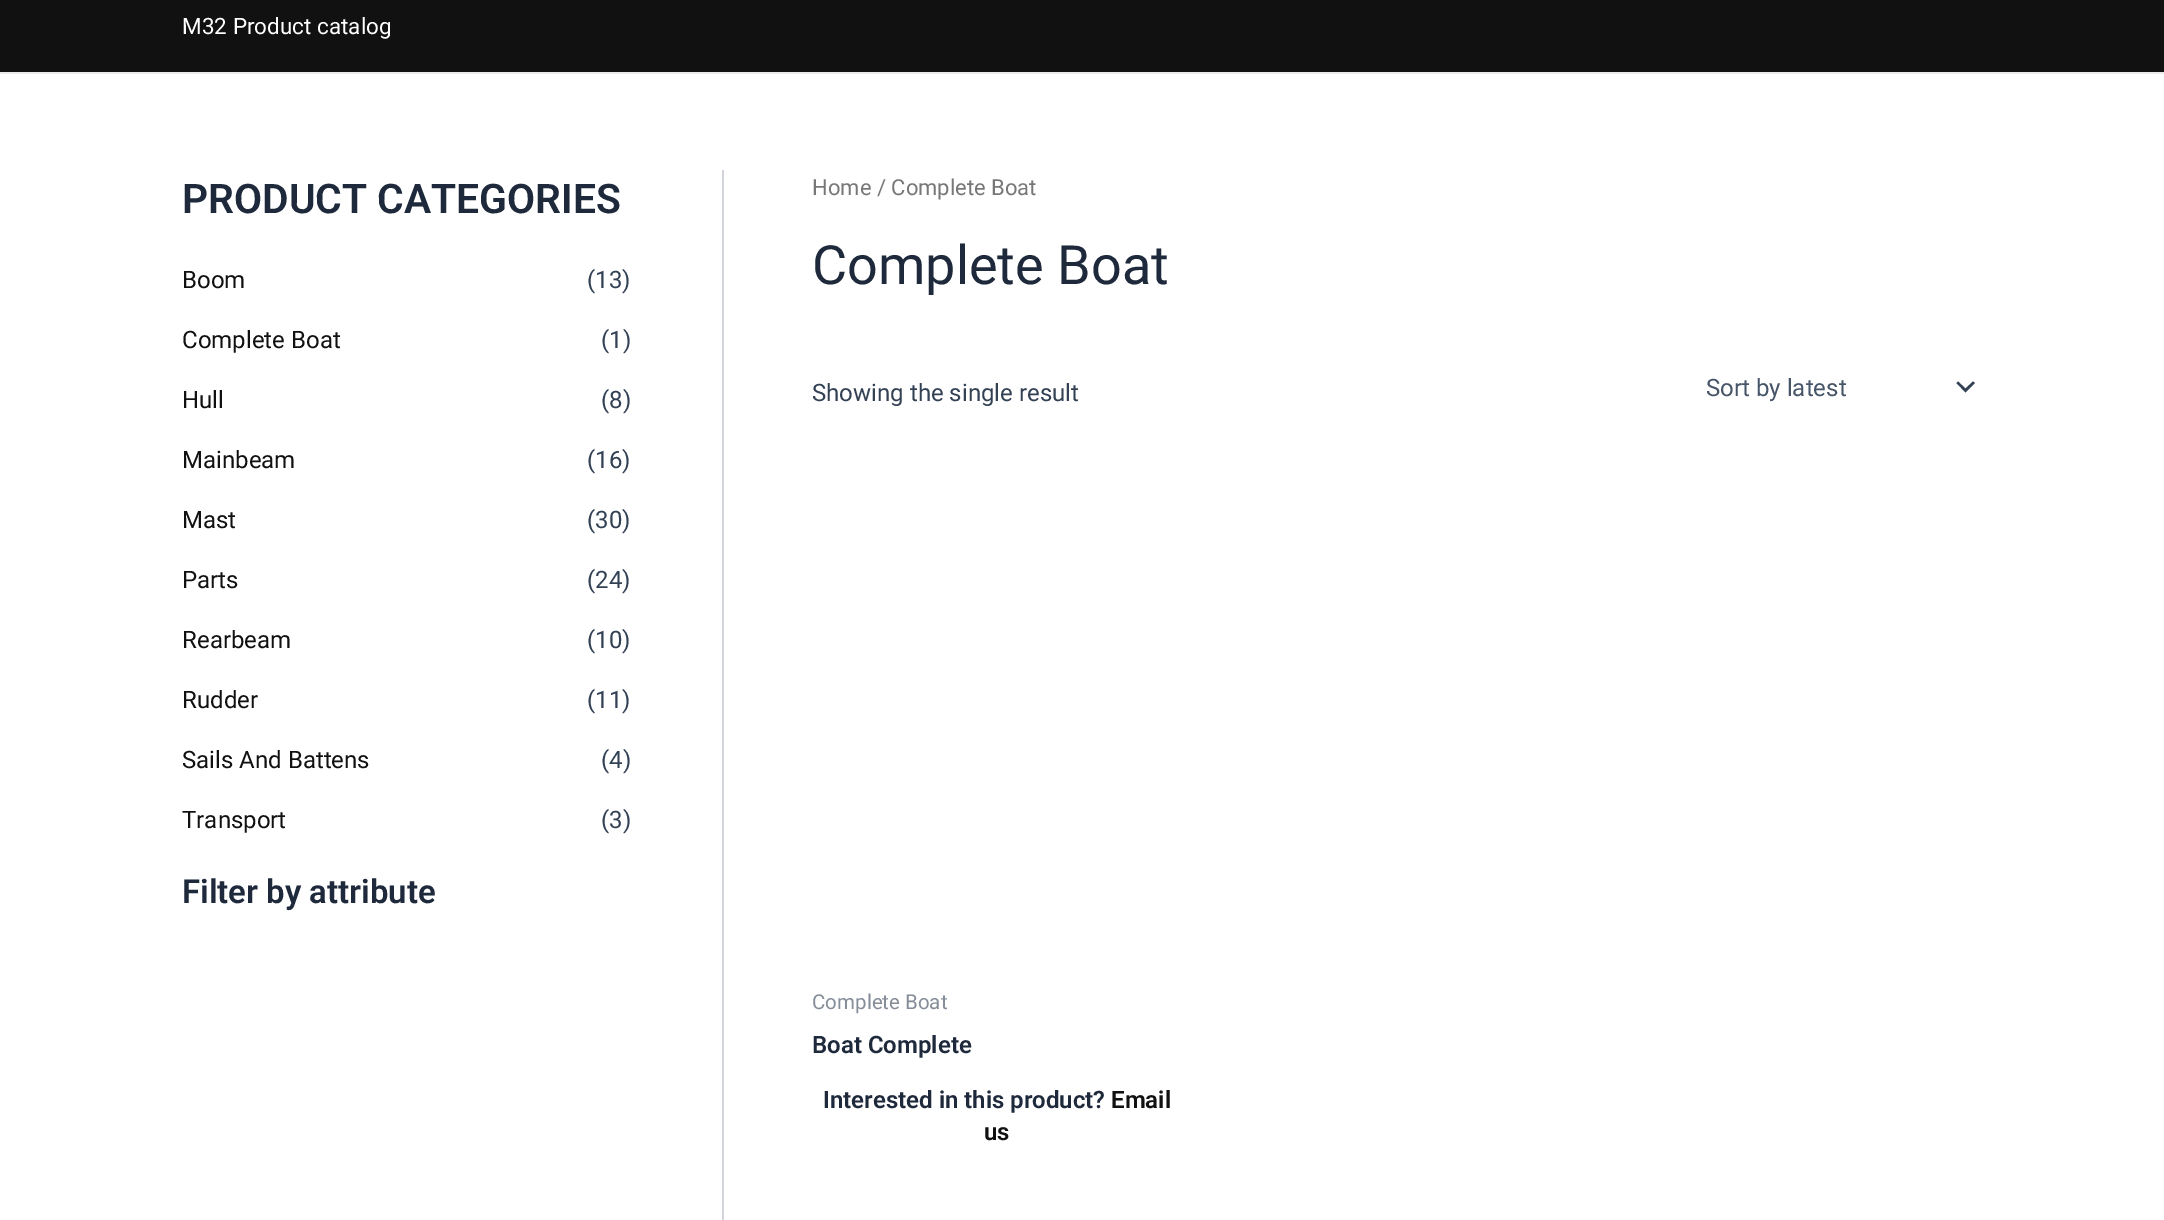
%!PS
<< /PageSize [2164 1220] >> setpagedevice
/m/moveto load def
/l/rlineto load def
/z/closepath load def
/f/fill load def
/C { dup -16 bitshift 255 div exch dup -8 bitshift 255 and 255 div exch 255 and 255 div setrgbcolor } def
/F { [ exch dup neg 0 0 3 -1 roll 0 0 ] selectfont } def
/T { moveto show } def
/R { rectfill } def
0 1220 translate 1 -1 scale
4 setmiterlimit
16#FFFFFF C
0 0 2164 1220 R
16#111111 C
0 0 2164 72 R
16#EAEAEA C
0 72 2164 2 R
/Roboto-Regular 22.5 F
16#FFFFFF C
(M32 Product catalog) 182 34 T
16#D1D5DB C
722 170 2 1050 R
/Roboto-SemiBold 40.75 F
16#1E293B C
(PRODUCT CATEGORIES) 182 213 T
/Roboto-Regular 24 F
16#111111 C
(Boom) 182 288 T
16#334155 C
(\(13\)) 587 288 T
16#111111 C
(Complete Boat) 182 348 T
16#334155 C
(\(1\)) 601 348 T
16#111111 C
(Hull) 182 408 T
16#334155 C
(\(8\)) 601 408 T
16#111111 C
(Mainbeam) 182 468 T
16#334155 C
(\(16\)) 587 468 T
16#111111 C
(Mast) 182 528 T
16#334155 C
(\(30\)) 587 528 T
16#111111 C
(Parts) 182 588 T
16#334155 C
(\(24\)) 587 588 T
16#111111 C
(Rearbeam) 182 648 T
16#334155 C
(\(10\)) 587 648 T
16#111111 C
(Rudder) 182 708 T
16#334155 C
(\(11\)) 587 708 T
16#111111 C
(Sails And Battens) 182 768 T
16#334155 C
(\(4\)) 601 768 T
16#111111 C
(Transport) 182 828 T
16#334155 C
(\(3\)) 601 828 T
/Roboto-SemiBold 33 F
16#1E293B C
(Filter by attribute) 182 903 T
/Roboto-Regular 22 F
16#777777 C
(Home / Complete Boat) 812 195 T
/Roboto-Regular 54 F
16#1E293B C
(Complete Boat) 812 284 T
/Roboto-Regular 24 F
16#334155 C
(Showing the single result) 812 401 T
1956.5 383 m 9 9.5 l 9.5 -9.5 l -2 -1.5 l -7.5 7 l -7.5 -7 l z f
16#475569 C
(Sort by latest) 1706 396 T
/Roboto-Regular 20.5 F
16#858D99 C
(Complete Boat) 812 1009 T
/Roboto-SemiBold 24 F
16#1E293B C
(Boat Complete) 812 1053 T
(Interested in this product?) 823 1108 T
16#111111 C
(Email) 1111 1108 T
(us) 984 1140 T
showpage
